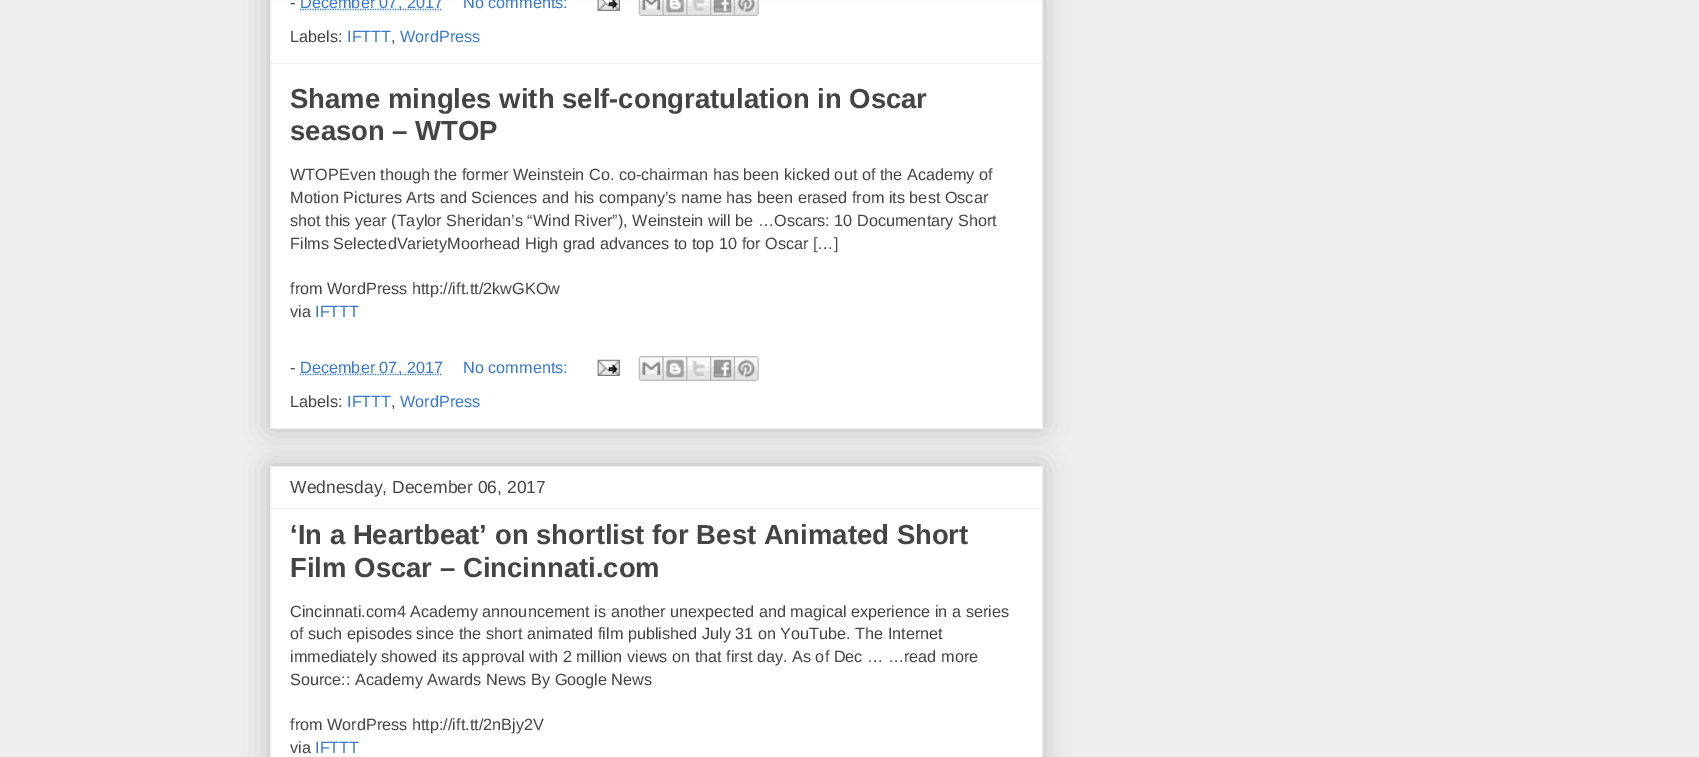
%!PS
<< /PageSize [1699 757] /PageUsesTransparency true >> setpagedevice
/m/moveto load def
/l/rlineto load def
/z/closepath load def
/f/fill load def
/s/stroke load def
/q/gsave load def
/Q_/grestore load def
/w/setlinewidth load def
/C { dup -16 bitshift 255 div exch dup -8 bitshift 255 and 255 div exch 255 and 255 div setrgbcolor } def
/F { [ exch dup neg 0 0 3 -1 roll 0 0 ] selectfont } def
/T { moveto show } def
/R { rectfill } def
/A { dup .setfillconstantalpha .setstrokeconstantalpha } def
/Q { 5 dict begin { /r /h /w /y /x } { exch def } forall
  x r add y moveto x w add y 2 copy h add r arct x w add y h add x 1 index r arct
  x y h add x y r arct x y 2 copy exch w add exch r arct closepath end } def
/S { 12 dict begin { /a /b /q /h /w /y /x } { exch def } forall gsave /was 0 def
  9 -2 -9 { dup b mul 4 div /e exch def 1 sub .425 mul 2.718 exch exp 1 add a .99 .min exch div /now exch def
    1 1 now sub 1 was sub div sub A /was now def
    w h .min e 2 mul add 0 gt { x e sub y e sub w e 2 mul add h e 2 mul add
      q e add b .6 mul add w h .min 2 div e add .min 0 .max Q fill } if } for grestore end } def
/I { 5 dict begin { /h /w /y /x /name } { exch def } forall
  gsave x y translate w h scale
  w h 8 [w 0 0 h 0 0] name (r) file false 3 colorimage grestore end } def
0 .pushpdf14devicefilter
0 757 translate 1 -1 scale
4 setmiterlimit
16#EEEEEE C
0 0 1699 757 R
16#000000 C
270 -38 773 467 0 12.5 .2 S
16#FFFFFF C
270.5 -.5 m 772 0 l 0 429 l -772 0 l z q f Q_
16#EEEEEE C
s
/LiberationSans-Regular 16.25 F
16#444444 C
(-) 290 8 T
16#3778CD C
1.2 w
[1.25 1.25] 0 setdash
300 9.5 m 142.5 0 l s
(December 07, 2017) 300 8 T
(No comments:) 463 8 T
(1.rgb) 597 0 23 11 I
(2.rgb) 638 0 25 16 I
(3.rgb) 662 0 25 16 I
(4.rgb) 686 0 24 16 I
(5.rgb) 710 0 24 16 I
(6.rgb) 733 0 26 16 I
16#444444 C
(Labels:) 290 42 T
16#3778CD C
(IFTTT) 347 42 T
16#444444 C
(,) 391 42 T
16#3778CD C
(WordPress) 400 42 T
16#EEEEEE C
271 63 770 1 R
/LiberationSans-Bold 27.5 F
16#444444 C
(Shame mingles with self-congratulation in Oscar) 290 108 T
(season – WTOP) 290 140 T
/LiberationSans-Regular 16.25 F
(WTOPEven though the former Weinstein Co. co-chairman has been kicked out of the Academy of) 290 180 T
(Motion Pictures Arts and Sciences and his company’s name has been erased from its best Oscar) 290 203 T
(shot this year \(Taylor Sheridan’s “Wind River”\), Weinstein will be …Oscars: 10 Documentary Short) 290 226 T
(Films SelectedVarietyMoorhead High grad advances to top 10 for Oscar […]) 290 249 T
(from WordPress http://ift.tt/2kwGKOw) 290 294 T
(via) 290 317 T
16#3778CD C
(IFTTT) 315 317 T
16#444444 C
(-) 290 373 T
16#3778CD C
300 374.5 m 142.5 0 l s
(December 07, 2017) 300 373 T
(No comments:) 463 373 T
(7.rgb) 597 359 23 17 I
(8.rgb) 638 356 25 25 I
(9.rgb) 662 356 25 25 I
(10.rgb) 686 356 24 25 I
(11.rgb) 710 356 24 25 I
(12.rgb) 733 356 26 25 I
16#444444 C
(Labels:) 290 407 T
16#3778CD C
(IFTTT) 347 407 T
16#444444 C
(,) 391 407 T
16#3778CD C
(WordPress) 400 407 T
16#000000 C
270 466 773 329 0 12.5 .2 S
16#FFFFFF C
270.5 466.5 m 772 0 l 0 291 l -772 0 l z q f Q_
16#EEEEEE C
1 w
[] 0 setdash
s
/LiberationSans-Regular 17.5 F
16#444444 C
(Wednesday, December 06, 2017) 290 493 T
16#EEEEEE C
271 508 770 1 R
/LiberationSans-Bold 27.5 F
16#444444 C
(‘In a Heartbeat’ on shortlist for Best Animated Short) 290 544 T
(Film Oscar – Cincinnati.com) 290 577 T
/LiberationSans-Regular 16.25 F
(Cincinnati.com4 Academy announcement is another unexpected and magical experience in a series) 290 617 T
(of such episodes since the short animated film published July 31 on YouTube. The Internet) 290 639 T
(immediately showed its approval with 2 million views on that first day. As of Dec … …read more) 290 662 T
(Source:: Academy Awards News By Google News) 290 685 T
(from WordPress http://ift.tt/2nBjy2V) 290 730 T
(via) 290 753 T
16#3778CD C
(IFTTT) 315 753 T
.poppdf14devicefilter showpage
